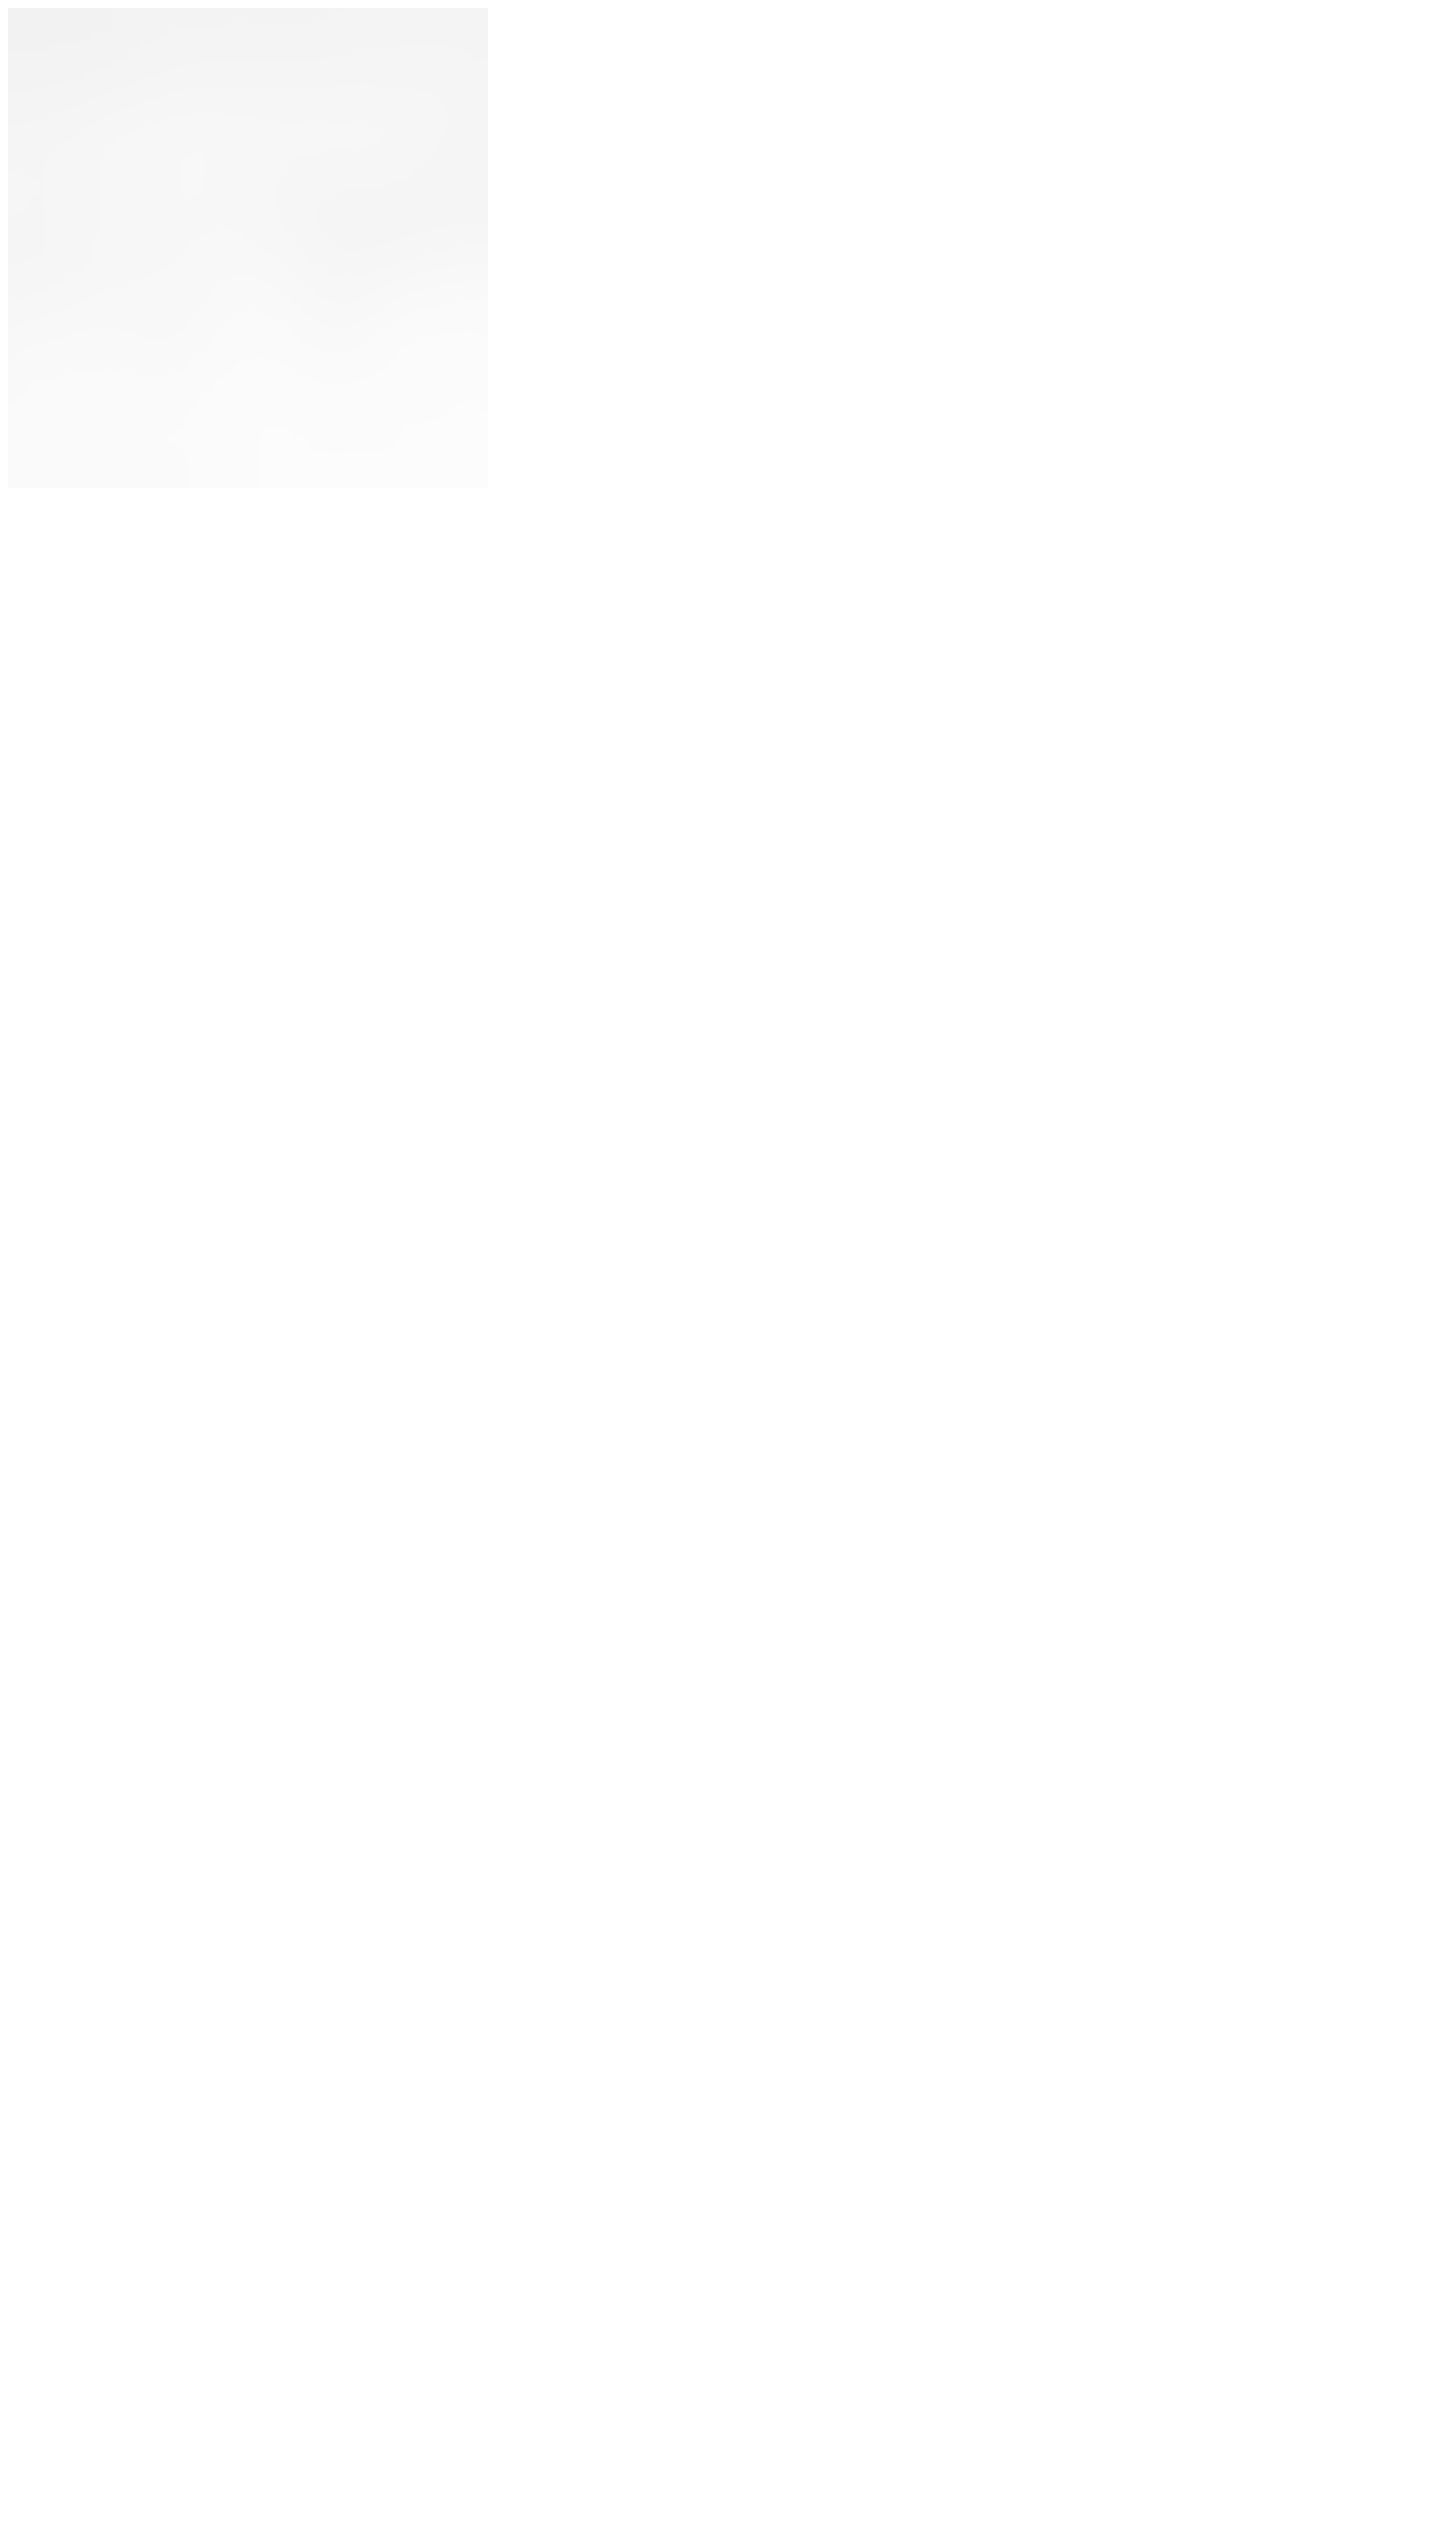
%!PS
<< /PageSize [1451 2542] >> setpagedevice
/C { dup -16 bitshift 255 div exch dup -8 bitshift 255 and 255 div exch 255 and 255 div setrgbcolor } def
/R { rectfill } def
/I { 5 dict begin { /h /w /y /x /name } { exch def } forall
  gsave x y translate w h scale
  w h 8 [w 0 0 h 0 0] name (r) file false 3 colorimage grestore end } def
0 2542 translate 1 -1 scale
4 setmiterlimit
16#FFFFFF C
0 0 1451 2542 R
(1.rgb) 8 8 480 480 I
showpage
